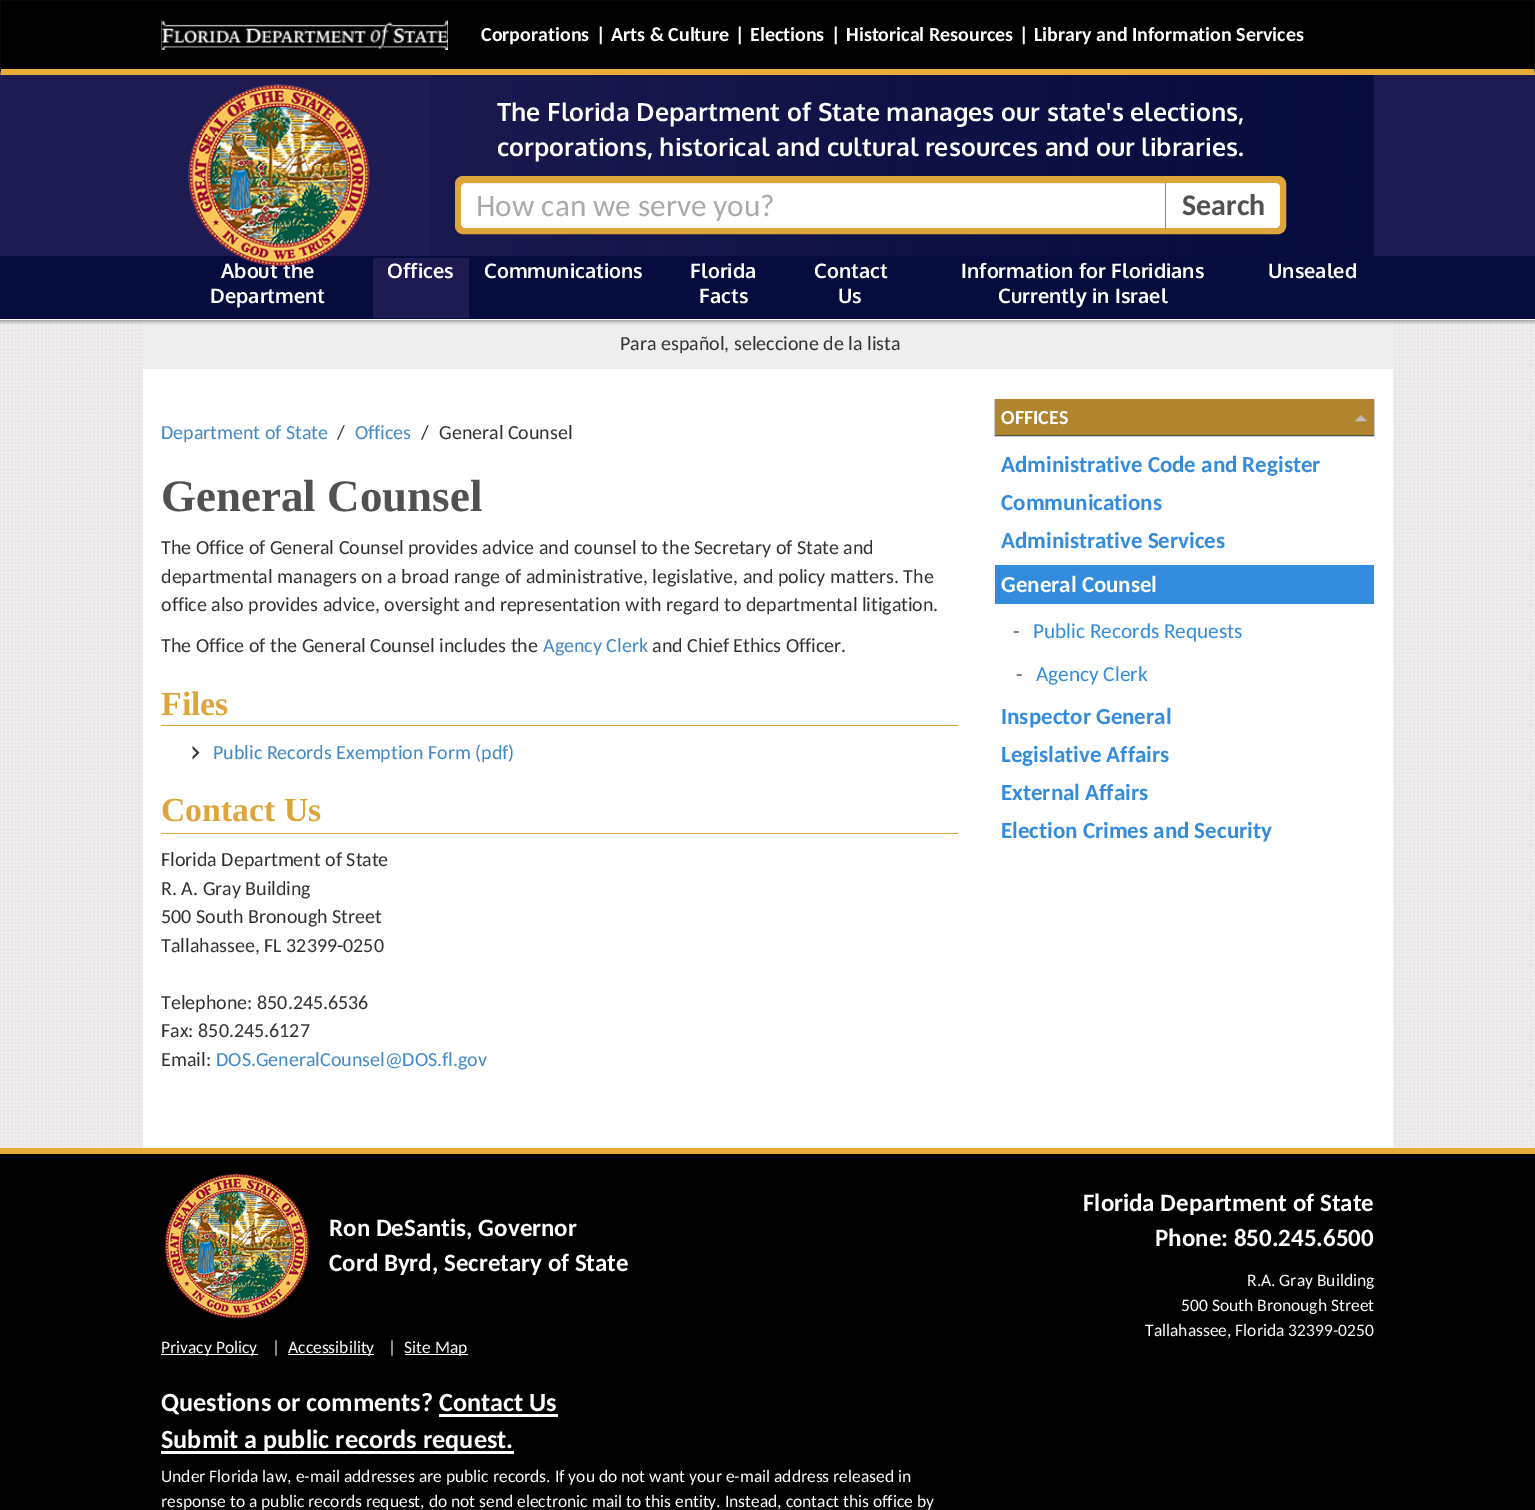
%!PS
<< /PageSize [1535 1510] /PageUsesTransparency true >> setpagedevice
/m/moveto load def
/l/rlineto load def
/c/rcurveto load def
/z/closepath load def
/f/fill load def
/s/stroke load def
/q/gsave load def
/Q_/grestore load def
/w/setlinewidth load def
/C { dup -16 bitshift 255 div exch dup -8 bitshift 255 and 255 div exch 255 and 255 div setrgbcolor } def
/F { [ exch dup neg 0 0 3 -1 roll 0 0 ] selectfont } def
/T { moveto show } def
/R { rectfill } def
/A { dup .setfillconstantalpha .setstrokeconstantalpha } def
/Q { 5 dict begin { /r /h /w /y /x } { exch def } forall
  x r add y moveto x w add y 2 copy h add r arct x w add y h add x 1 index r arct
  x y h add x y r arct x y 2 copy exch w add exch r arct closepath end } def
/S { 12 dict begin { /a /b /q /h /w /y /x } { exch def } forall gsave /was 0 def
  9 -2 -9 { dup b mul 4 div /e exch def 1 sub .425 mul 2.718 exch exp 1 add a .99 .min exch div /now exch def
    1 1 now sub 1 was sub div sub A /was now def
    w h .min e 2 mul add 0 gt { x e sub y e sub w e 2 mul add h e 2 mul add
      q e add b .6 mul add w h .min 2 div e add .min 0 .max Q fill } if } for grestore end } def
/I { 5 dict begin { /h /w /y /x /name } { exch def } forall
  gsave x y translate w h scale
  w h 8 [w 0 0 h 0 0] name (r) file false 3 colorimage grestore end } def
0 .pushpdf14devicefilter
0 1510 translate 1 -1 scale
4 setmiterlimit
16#FFFFFF C
0 0 1535 1510 R
(1.rgb) 0 69 1535 1079 I
16#000000 C
1 1 1533 68 R
16#080808 C
0 0 1535 1 R
1535 0 m 0 75 l -1 -6 l 0 -68 l z f
16#E9AC3B C
1535 75 m -1535 0 l 1 -6 l 1533 0 l z f
16#080808 C
0 75 m 0 -75 l 1 1 l 0 68 l z f
16#FFFFFF C
161 20 287 30 R
(2.rgb) 161 20 287 30 I
/Carlito-Bold 20 F
(Corporations) 481 41 T
(|) 596 41 T
(Arts & Culture) 611 41 T
(|) 735 41 T
(Elections) 750 41 T
(|) 831 41 T
(Historical Resources) 846 41 T
(|) 1019 41 T
(Library and Information Services) 1034 41 T
16#1D1B52 C
0 75 1535 181 R
(3.rgb) 431 75 943 181 I
16#070C3E C
0 256 1535 63 R
/Oxygen-Bold 20 F
16#FFFFFF C
(About the) 221 278 T
(4.rgb) 188 84 182 182 I
/Oxygen-Bold 25 F
(The Florida Department of State manages our state's elections,) 497 121 T
(corporations, historical and cultural resources and our libraries.) 497 156 T
16#DEA63A C
458 179 825 52 5 Q q f Q_
6 w
s
16#FFFFFF C
466 183 m 699 0 l 0 45 l -699 0 l -3 0 -5 -2 -5 -5 c 0 -35 l 0 -3 2 -5 5 -5 c z f
0.07 A
16#000000 C
466 184 m 699 0 l 0 -1 l -699 0 l -3 0 -5 3 -5 6 c 0 -3 2 -5 5 -5 c z f
/Carlito-Regular 31.25 F
1 A
16#AAAAAA C
(How can we serve you?) 476 216 T
16#FFFFFF C
1165 183 m 110 0 l 3 0 5 2 5 5 c 0 35 l 0 3 -2 5 -5 5 c -110 0 l z f
16#888888 C
1165 183 1 45 R
/Carlito-Bold 30 F
16#515151 C
(Search) 1182 215 T
16#FFFFFF C
0 319 1535 1 R
/Oxygen-Bold 20 F
(Department) 210 303 T
16#1D1B52 C
373 258 96 60 R
16#FFFFFF C
(Offices) 387 278 T
(Communications) 484 278 T
(Florida) 690 278 T
(Facts) 699 303 T
(Contact) 814 278 T
(Us) 838 303 T
(Information for Floridians) 961 278 T
(Currently in Israel) 998 303 T
(Unsealed) 1268 278 T
16#EEEEEE C
143 320 1250 49 R
(5.rgb) 0 320 1535 5 I
/Carlito-Regular 20 F
16#313131 C
(Para español, seleccione de la lista) 620 350 T
16#FFFFFF C
143 369 1250 779 R
16#4088C7 C
(Department of State) 161 439 T
16#313131 C
(/) 337 439 T
16#4088C7 C
(Offices) 355 439 T
16#313131 C
(/) 421 439 T
(General Counsel) 439 439 T
/LiberationSerif-Bold 45 F
16#515151 C
(General Counsel) 161 511 T
/Carlito-Regular 20 F
16#313131 C
(The Office of General Counsel provides advice and counsel to the Secretary of State and) 161 554 T
(departmental managers on a broad range of administrative, legislative, and policy matters. The) 161 583 T
(office also provides advice, oversight and representation with regard to departmental litigation.) 161 611 T
(The Office of the General Counsel includes the) 161 652 T
16#4088C7 C
(Agency Clerk) 543 652 T
16#313131 C
(and Chief Ethics Officer.) 652 652 T
16#DEA63A C
161 725 797 1 R
/LiberationSerif-Bold 33.75 F
(Files) 161 715 T
(6.rgb) 192 746 8 14 I
/Carlito-Regular 20 F
16#4088C7 C
(Public Records Exemption Form \(pdf\)) 213 759 T
16#DEA63A C
161 833 797 1 R
/LiberationSerif-Bold 33.75 F
(Contact Us) 161 821 T
/Carlito-Regular 20 F
16#313131 C
(Florida Department of State) 161 866 T
(R. A. Gray Building) 161 895 T
(500 South Bronough Street) 161 923 T
(Tallahassee, FL 32399-0250) 161 952 T
(Telephone: 850.245.6536) 161 1009 T
(Fax: 850.245.6127) 161 1037 T
(Email:) 161 1066 T
16#4088C7 C
(DOS.GeneralCounsel@DOS.fl.gov) 216 1066 T
16#333333 C
995 400 379 36 0 .5 1 S
16#B1842E C
995 399 379 36 R
(7.rgb) 1355 415 13 7 I
/Carlito-Bold 20 F
16#FFFFFF C
(OFFICES) 1001 424 T
/Carlito-Bold 23 F
16#328BDC C
(Administrative Code and Register) 1001 472 T
(Communications) 1001 510 T
(Administrative Services) 1001 548 T
995 565 379 39 R
16#FFFFFF C
(General Counsel) 1001 592 T
/Carlito-Regular 21.25 F
16#515151 C
(-) 1013 638 T
16#328BDC C
(Public Records Requests) 1033 638 T
16#515151 C
(-) 1016 681 T
16#328BDC C
(Agency Clerk) 1036 681 T
/Carlito-Bold 23 F
(Inspector General) 1001 724 T
(Legislative Affairs) 1001 762 T
(External Affairs) 1001 800 T
(Election Crimes and Security) 1001 838 T
16#000000 C
0 1154 1535 356 R
16#E9AC3B C
0 1148 1535 6 R
(8.rgb) 164 1173 145 146 I
/Carlito-Bold 25 F
16#FFFFFF C
(Ron DeSantis, Governor) 329 1236 T
(Cord Byrd, Secretary of State) 329 1271 T
161 1354 97 1 R
/Carlito-Regular 17.5 F
(Privacy Policy) 161 1353 T
(|) 272 1353 T
288 1354 86 1 R
(Accessibility) 288 1353 T
(|) 388 1353 T
405 1354 63 1 R
(Site Map) 404 1353 T
/Carlito-Bold 26.25 F
(Questions or comments? Contact Us) 161 1411 T
439 1414 119 3 R
161 1451 353 3 R
(Submit a public records request.) 161 1448 T
/Carlito-Regular 17.5 F
(Under Florida law, e-mail addresses are public records. If you do not want your e-mail address released in) 161 1482 T
(response to a public records request, do not send electronic mail to this entity. Instead, contact this office by) 161 1507 T
/Carlito-Bold 25 F
(Florida Department of State) 1083 1211 T
(Phone: 850.245.6500) 1155 1246 T
/Carlito-Regular 17.5 F
(R.A. Gray Building) 1247 1286 T
(500 South Bronough Street) 1181 1311 T
(Tallahassee, Florida 32399-0250) 1145 1336 T
.poppdf14devicefilter showpage
